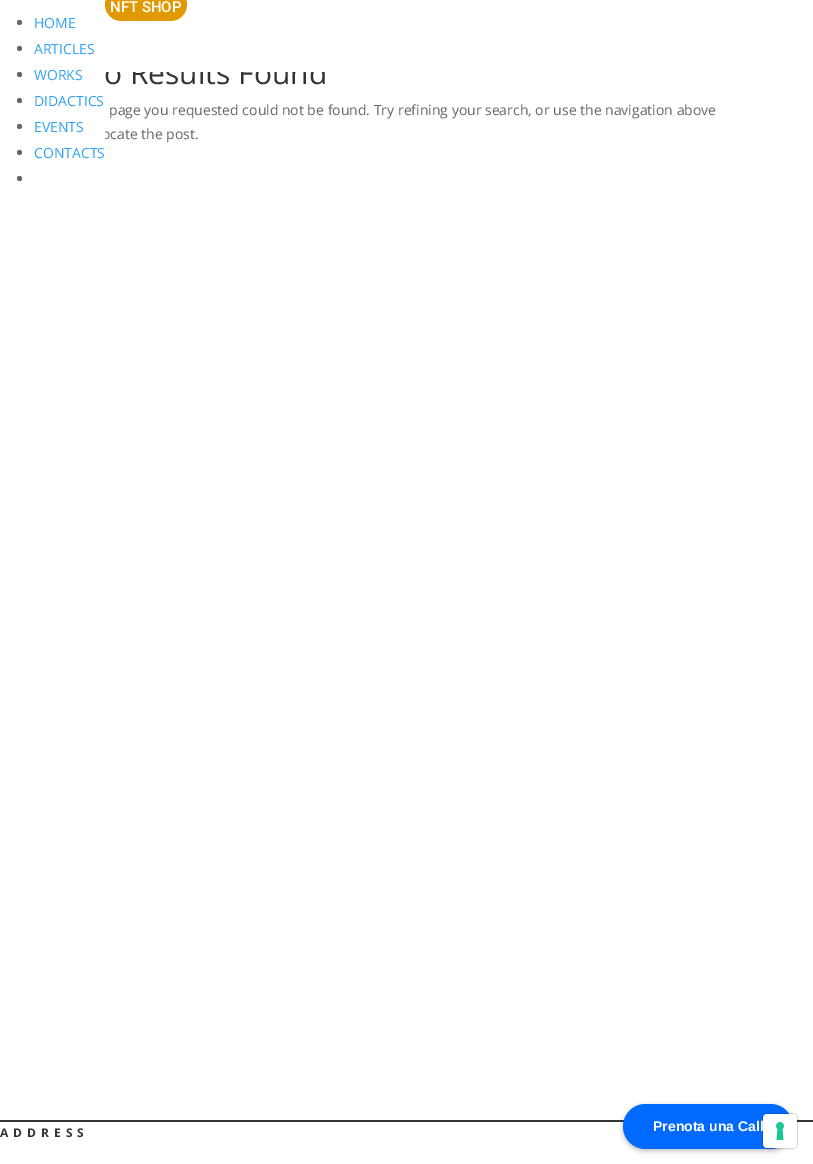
%!PS
<< /PageSize [813 1164] /PageUsesTransparency true >> setpagedevice
/m/moveto load def
/f/fill load def
/s/stroke load def
/C { dup -16 bitshift 255 div exch dup -8 bitshift 255 and 255 div exch 255 and 255 div setrgbcolor } def
/F { [ exch dup neg 0 0 3 -1 roll 0 0 ] selectfont } def
/T { moveto show } def
/R { rectfill } def
/A { dup .setfillconstantalpha .setstrokeconstantalpha } def
/O { newpath 0 360 arc closepath } def
/Q { 5 dict begin { /r /h /w /y /x } { exch def } forall
  x r add y moveto x w add y 2 copy h add r arct x w add y h add x 1 index r arct
  x y h add x y r arct x y 2 copy exch w add exch r arct closepath end } def
/S { 12 dict begin { /a /b /q /h /w /y /x } { exch def } forall gsave /was 0 def
  9 -2 -9 { dup b mul 4 div /e exch def 1 sub .425 mul 2.718 exch exp 1 add a .99 .min exch div /now exch def
    1 1 now sub 1 was sub div sub A /was now def
    w h .min e 2 mul add 0 gt { x e sub y e sub w e 2 mul add h e 2 mul add
      q e add b .6 mul add w h .min 2 div e add .min 0 .max Q fill } if } for grestore end } def
/I { 5 dict begin { /h /w /y /x /name } { exch def } forall
  gsave x y translate w h scale
  w h 8 [w 0 0 h 0 0] name (r) file false 3 colorimage grestore end } def
0 .pushpdf14devicefilter
0 1164 translate 1 -1 scale
4 setmiterlimit
16#FFFFFF C
0 0 813 1164 R
/OpenSans-Regular 30 F
16#333333 C
(o Results Found) 104 84 T
16#FFFFFF C
106 61 219 11 R
16#E09900 C
105 -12 82 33 16.5 Q f
/Roboto-Medium 15 F
16#FFFFFF C
(NFT SHOP) 110 12 T
/OpenSans-Regular 14 F
16#666666 C
(ocate the post.) 102 139 T
16#FFFFFF C
102 131 3 8 R
16#666666 C
19.5 22.5 2.5 O f
16#2EA3F2 C
(HOME) 34 28 T
16#666666 C
19.5 48.5 2.5 O f
16#2EA3F2 C
(ARTICLES) 34 54 T
16#666666 C
19.5 74.5 2.5 O f
16#2EA3F2 C
(WORKS) 34 80 T
16#666666 C
19.5 100.5 2.5 O f
16#2EA3F2 C
(DIDACTICS) 34 106 T
16#666666 C
19.5 126.5 2.5 O f
16#2EA3F2 C
(EVENTS) 34 132 T
16#666666 C
19.5 152.5 2.5 O f
16#2EA3F2 C
(CONTACTS) 34 158 T
16#666666 C
19.5 178.5 2.5 O f
(page you requested could not be found. Try refining your search, or use the navigation above) 109 115 T
16#333333 C
0 1120 813 2 R
/OpenSans-Bold 12 F
0 1137 m 5 0 (ADDRESS) ashow
16#000000 C
623 1106 170 45 22.5 2.5 .25 S
16#0069FF C
623 1104 170 45 22.5 Q f
/LiberationSans-Bold 14 F
16#FFFFFF C
(Prenota una Call) 653 1131 T
0.15 A
16#000000 C
762.5 1113.5 35 35 4.5 Q s
1 A
16#FFFFFF C
763 1114 34 34 4 Q f
(1.rgb) 776 1122 8 18 I
.poppdf14devicefilter showpage
